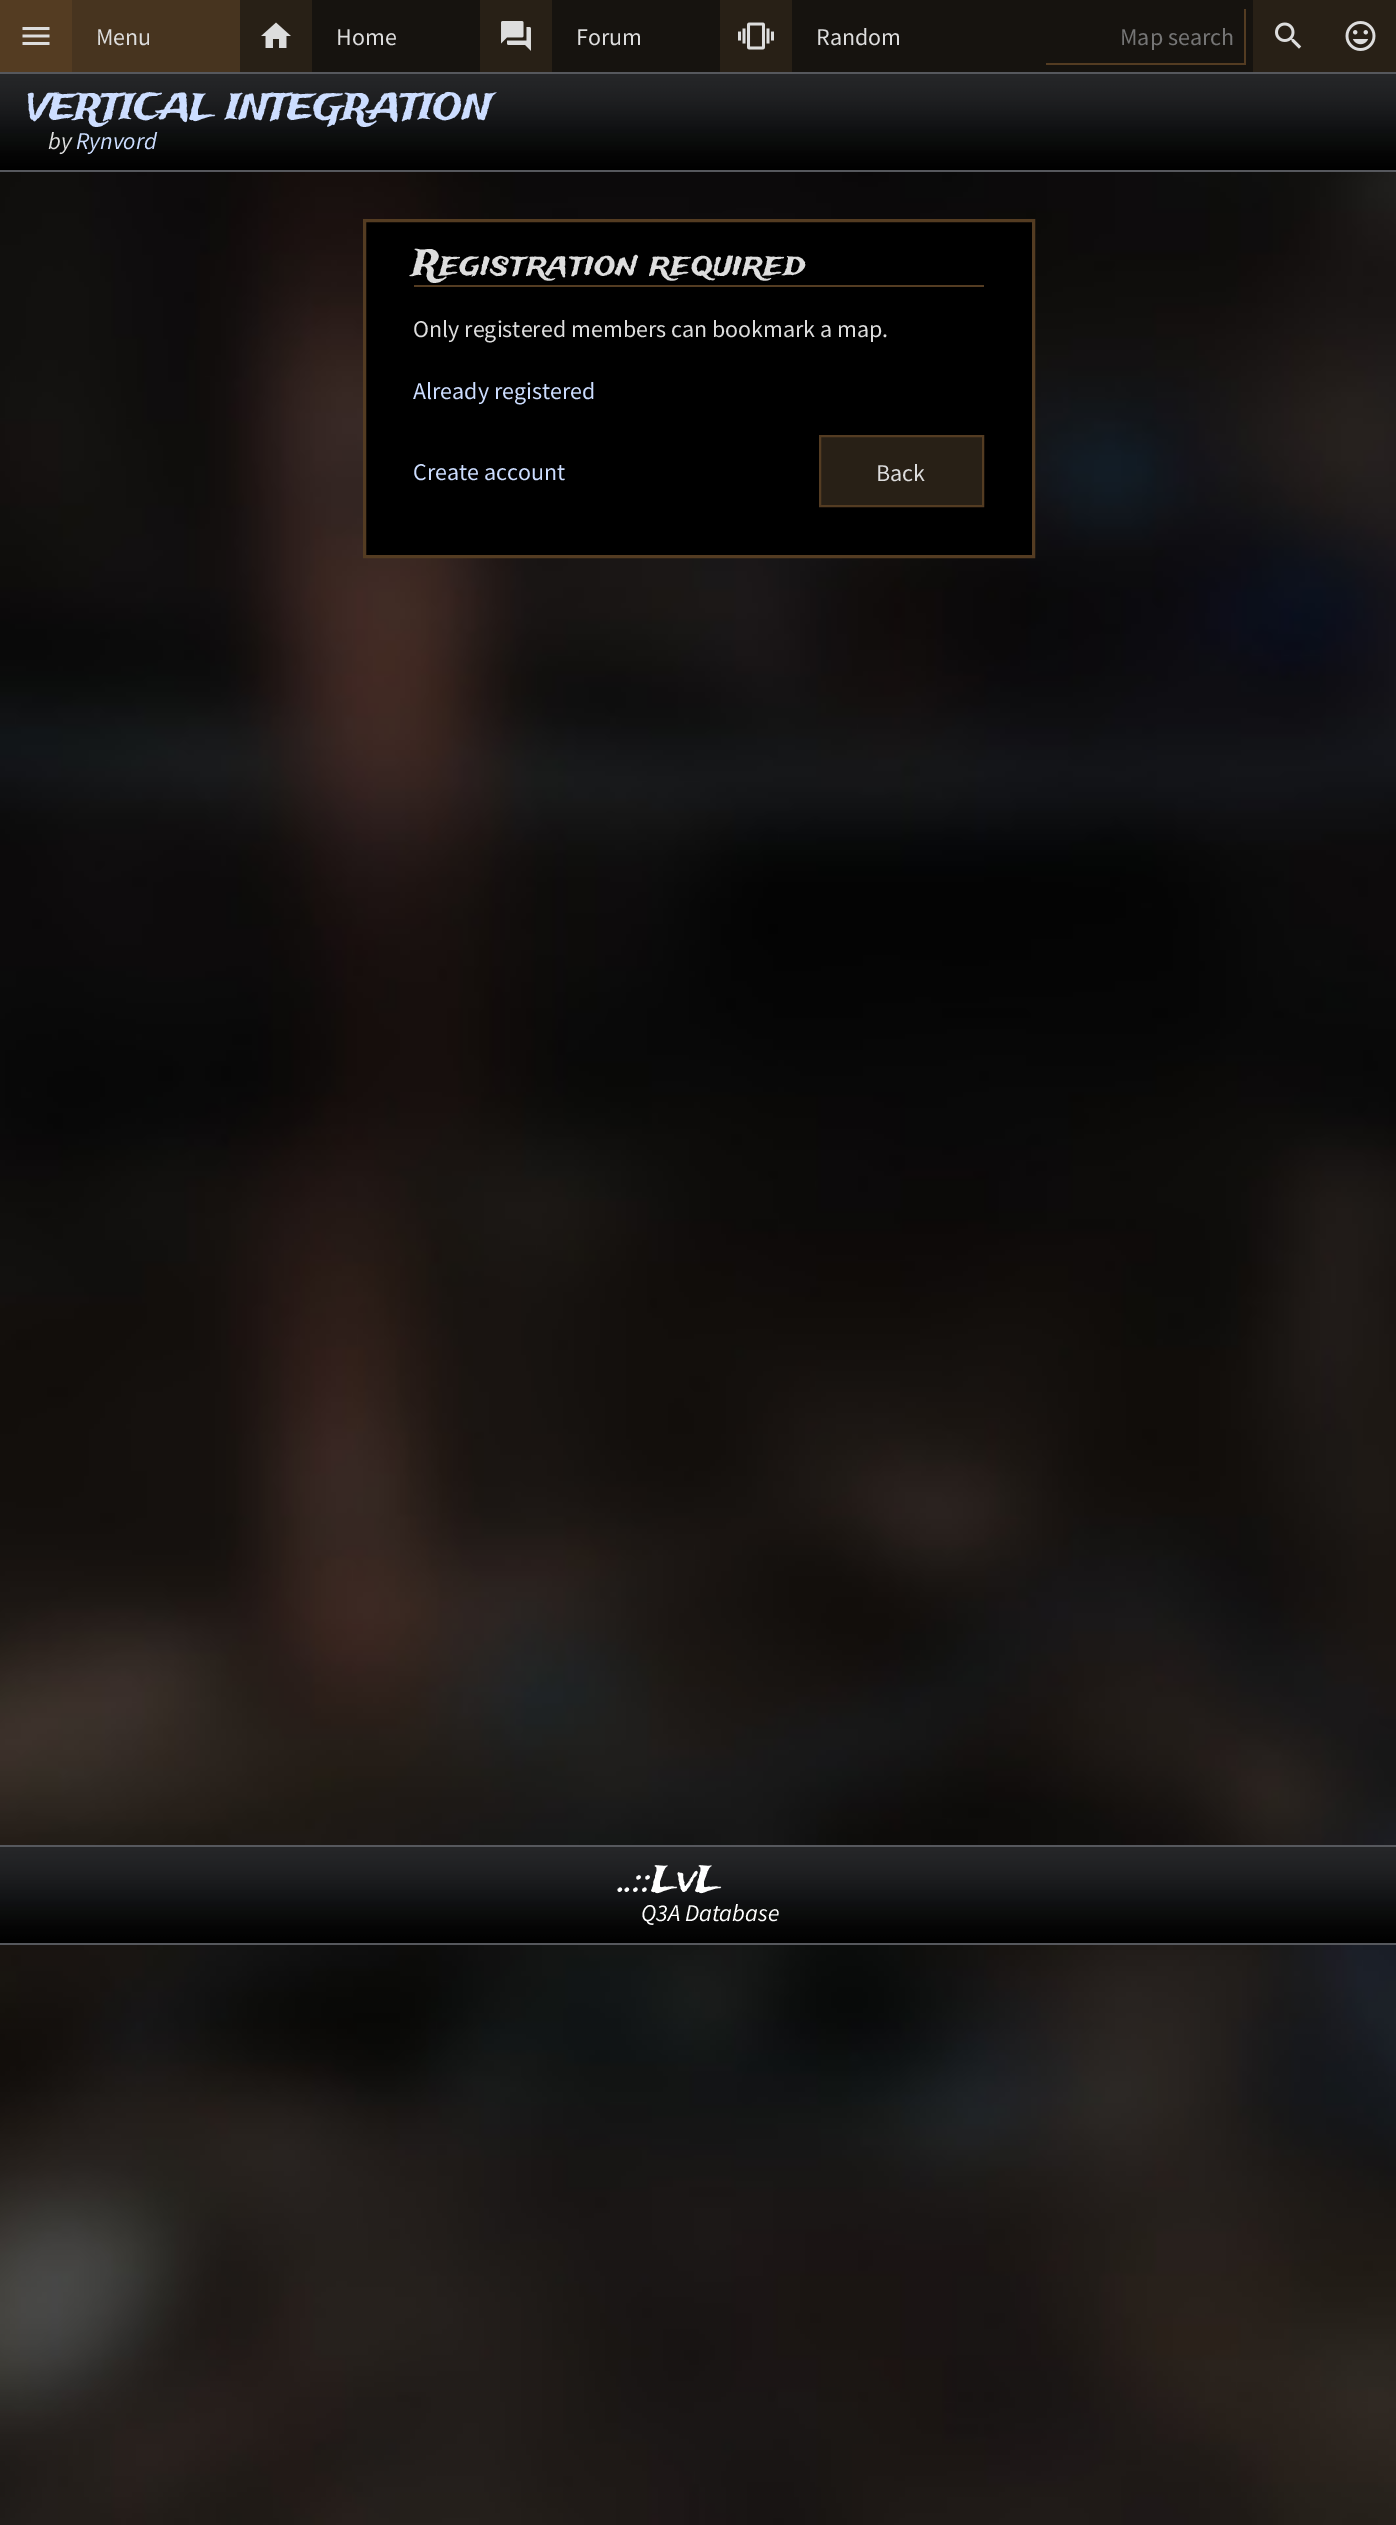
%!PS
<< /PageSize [1396 2525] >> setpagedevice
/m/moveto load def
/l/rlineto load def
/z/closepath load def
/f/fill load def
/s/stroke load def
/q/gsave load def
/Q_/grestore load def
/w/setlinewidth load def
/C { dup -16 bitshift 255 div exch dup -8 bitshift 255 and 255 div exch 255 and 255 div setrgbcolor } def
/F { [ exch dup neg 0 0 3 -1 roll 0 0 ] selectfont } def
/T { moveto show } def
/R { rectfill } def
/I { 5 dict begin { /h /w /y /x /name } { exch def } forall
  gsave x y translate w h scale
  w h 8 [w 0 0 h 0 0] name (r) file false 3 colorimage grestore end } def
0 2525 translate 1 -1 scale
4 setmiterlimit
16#FFFFFF C
0 0 1396 2525 R
16#16130F C
312 0 941 72 R
16#543C22 C
0 0 72 72 R
(1.rgb) 22 27 28 18 I
16#47341F C
72 0 168 72 R
/SourceSansPro-Regular 24 F
16#DDDDDD C
(Menu) 96 45 T
16#282016 C
240 0 72 72 R
(2.rgb) 261 22 30 26 I
16#DDDDDD C
(Home) 336 45 T
16#282016 C
480 0 72 72 R
(3.rgb) 501 21 30 30 I
16#DDDDDD C
(Forum) 576 45 T
16#282016 C
720 0 72 72 R
(4.rgb) 738 22 36 28 I
16#DDDDDD C
(Random) 816 45 T
16#543C22 C
1244 9 2 56 R
1046 63 199 2 R
16#757575 C
(Map search) 1120 45 T
16#282016 C
1253 0 143 72 R
(5.rgb) 1275 22 27 27 I
(6.rgb) 1345 21 31 30 I
(7.rgb) 0 74 1396 96 I
16#56585D C
0 72 1396 2 R
0 170 1396 2 R
/TradeWinds-Regular 36 F
16#CCDDFF C
(VERTICAL INTEGRATION) 27 119 T
/SourceSansPro-Italic 24 F
16#DDDDDD C
(by) 48 149 T
16#CCDDFF C
(Rynvord) 76 149 T
(8.rgb) 0 172 1396 2353 I
16#000000 C
364.5 220.5 m 669 0 l 0 336 l -669 0 l z q f Q_
16#543C22 C
3 w
s
414 285 570 2 R
/TradeWinds-Regular 36 F
16#DDDDDD C
(Registration required) 413 275 T
/SourceSansPro-Regular 24 F
(Only registered members can bookmark a map.) 413 337 T
16#CCDDFF C
(Already registered) 413 399 T
(Create account) 413 480 T
16#282016 C
820 436 m 163 0 l 0 70 l -163 0 l z q f Q_
16#543C22 C
2 w
s
16#DDDDDD C
(Back) 876 481 T
(9.rgb) 0 1847 1396 96 I
16#56585D C
0 1845 1396 2 R
0 1943 1396 2 R
/TradeWinds-Regular 36 F
16#FFFFFF C
(..::LvL) 620 1891 T
/SourceSansPro-Italic 24 F
(Q3A Database) 641 1921 T
showpage
